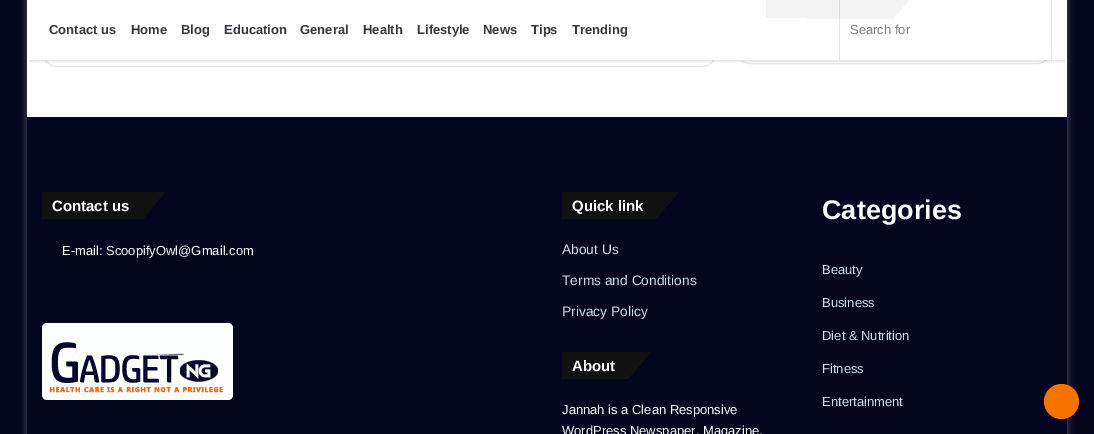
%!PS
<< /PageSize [1094 434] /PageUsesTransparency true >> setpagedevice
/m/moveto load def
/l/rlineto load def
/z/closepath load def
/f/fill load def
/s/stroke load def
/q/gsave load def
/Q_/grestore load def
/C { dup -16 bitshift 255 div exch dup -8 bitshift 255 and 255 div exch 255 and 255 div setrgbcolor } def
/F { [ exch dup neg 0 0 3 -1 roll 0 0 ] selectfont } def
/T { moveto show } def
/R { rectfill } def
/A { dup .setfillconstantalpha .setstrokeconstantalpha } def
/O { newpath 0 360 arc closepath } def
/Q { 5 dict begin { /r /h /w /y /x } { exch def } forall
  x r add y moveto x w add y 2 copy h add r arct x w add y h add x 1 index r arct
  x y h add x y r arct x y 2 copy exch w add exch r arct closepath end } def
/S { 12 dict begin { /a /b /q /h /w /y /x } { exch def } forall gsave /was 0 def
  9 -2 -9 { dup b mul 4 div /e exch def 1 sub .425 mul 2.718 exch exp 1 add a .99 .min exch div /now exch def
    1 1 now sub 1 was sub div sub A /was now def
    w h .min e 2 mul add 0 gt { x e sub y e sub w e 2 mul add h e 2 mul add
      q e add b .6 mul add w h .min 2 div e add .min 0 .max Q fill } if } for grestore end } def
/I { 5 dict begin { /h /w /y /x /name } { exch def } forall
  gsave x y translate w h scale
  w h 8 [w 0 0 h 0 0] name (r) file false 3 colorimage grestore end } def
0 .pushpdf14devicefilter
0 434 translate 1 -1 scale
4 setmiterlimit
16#04051E C
0 0 1094 434 R
16#ABABAB C
27 -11 1040 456 0 3.5 .5 S
16#FFFFFF C
27 0 1040 117 R
16#E6E6E6 C
42.5 -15.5 674 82 14.5 Q s
735.5 -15.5 316 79 14.5 Q s
16#131313 C
766 0 57 18 R
829 -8 m 87 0 l -23 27 l -87 0 l z f
q
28 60 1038 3 rectclip
16#000000 C
29 6 1036 56 0 1 .1 S
Q_
0.95 A
16#FFFFFF C
42 0 1010 60 R
/LiberationSans-Bold 13 F
1 A
16#37393E C
(Contact us) 49 34 T
(Home) 131 34 T
(Blog) 181 34 T
(Education) 224 34 T
(General) 300 34 T
(Health) 363 34 T
(Lifestyle) 417 34 T
(News) 483 34 T
(Tips) 531 34 T
(Trending) 572 34 T
16#E6E6E6 C
1051 0 1 60 R
0.1 A
16#000000 C
839 0 1 60 R
/LiberationSans-Regular 13 F
1 A
16#7C7C7C C
(Search for) 850 34 T
16#04051E C
27 117 1040 317 R
16#111111 C
42 192 55 27 R
97 192 m 68 0 l -22 27 l -69 0 l z f
/LiberationSans-Bold 15 F
16#FCFDFD C
(Contact us) 52 211 T
/LiberationSans-Regular 13 F
(E-mail: ScoopifyOwl@Gmail.com) 62 255 T
42 323 191 77 5 Q f
(1.rgb) 49 342 174 51 I
16#111111 C
562 192 53 27 R
615 192 m 64 0 l -23 27 l -64 0 l z f
/LiberationSans-Bold 15 F
16#FCFDFD C
(Quick link) 572 211 T
/LiberationSans-Regular 13.75 F
16#CBE0F2 C
(About Us) 562 254 T
(Terms and Conditions) 562 285 T
(Privacy Policy) 562 316 T
16#111111 C
562 352 44 27 R
606 352 m 45 0 l -23 27 l -44 0 l z f
/LiberationSans-Bold 15 F
16#FCFDFD C
(About) 572 371 T
/LiberationSans-Regular 13 F
(Jannah is a Clean Responsive) 562 414 T
(WordPress Newspaper, Magazine,) 562 435 T
/LiberationSans-Bold 27 F
(Categories) 822 219 T
/LiberationSans-Regular 13 F
16#CBE0F2 C
(Beauty) 822 274 T
(Business) 822 307 T
(Diet & Nutrition) 822 340 T
(Fitness) 822 373 T
(Entertainment) 822 406 T
16#F77300 C
1061.5 401.5 17.5 O f
.poppdf14devicefilter showpage
